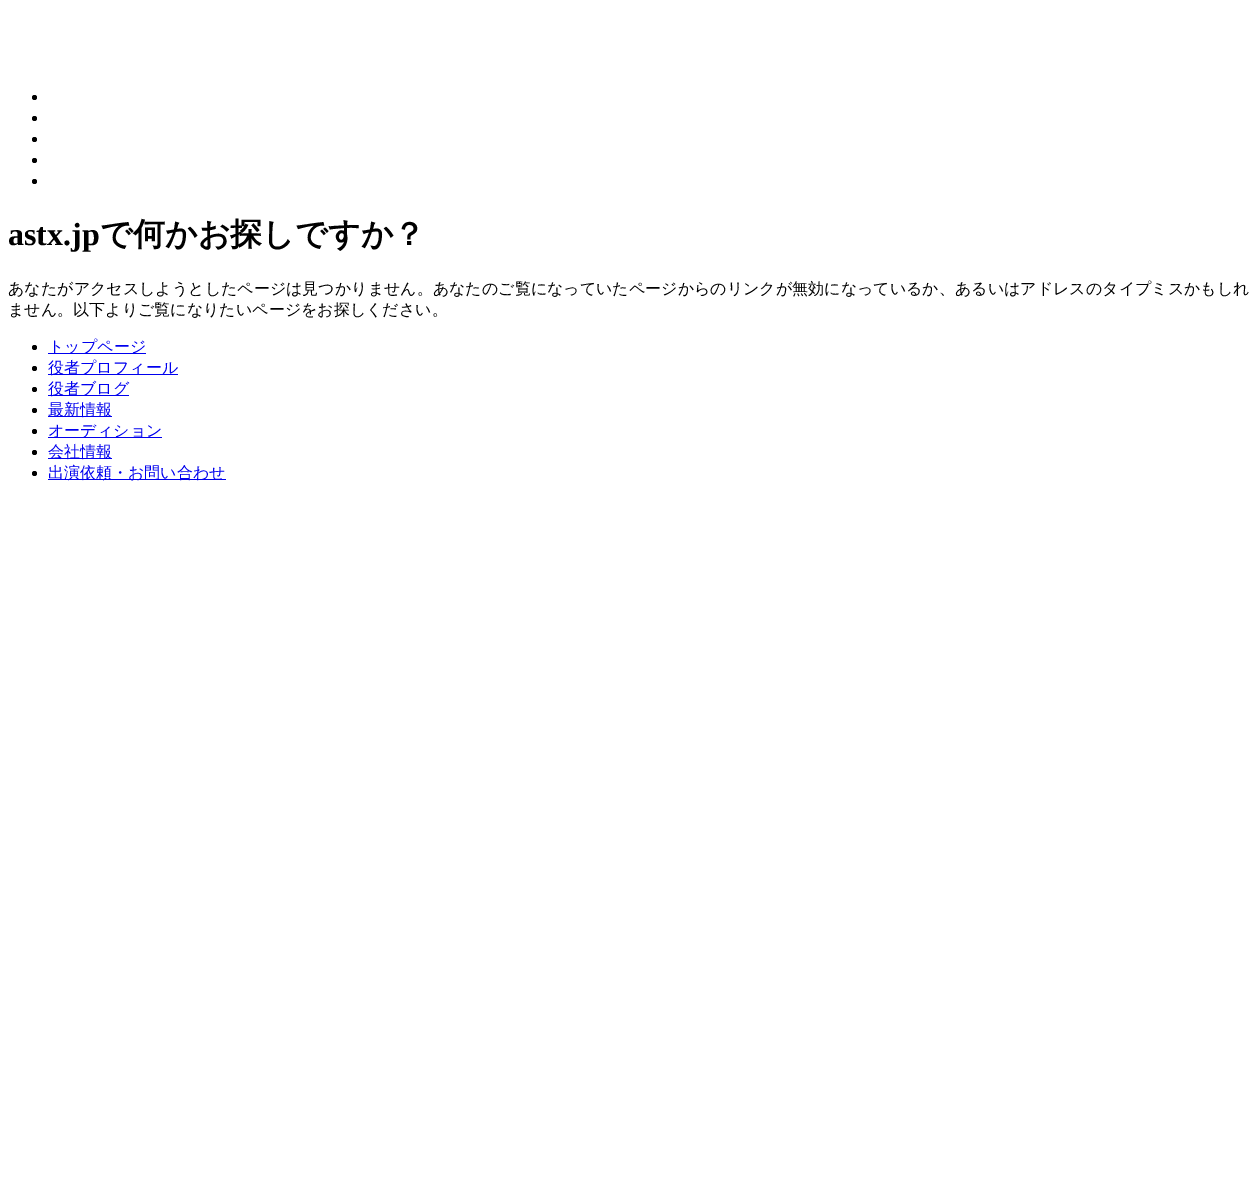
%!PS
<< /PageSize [1258 1203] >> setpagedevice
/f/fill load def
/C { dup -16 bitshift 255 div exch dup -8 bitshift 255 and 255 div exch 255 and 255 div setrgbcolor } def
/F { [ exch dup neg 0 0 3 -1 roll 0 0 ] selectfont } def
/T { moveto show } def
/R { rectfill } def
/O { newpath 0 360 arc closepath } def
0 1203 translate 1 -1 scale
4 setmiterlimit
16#FFFFFF C
0 0 1258 1203 R
16#000000 C
34.5 97.5 2.5 O f
34.5 118.5 2.5 O f
34.5 139.5 2.5 O f
34.5 160.5 2.5 O f
34.5 181.5 2.5 O f
/LiberationSerif-Bold 32 F
(astx.jp) 8 245 T
/WenQuanYiZenHei-Bold 32 F
(で何かお探しですか？) 100 245 T
/WenQuanYiZenHei-Medium 16 F
(あなたがアクセスしようとしたページは見つかりません。あなたのご覧になっていたページからのリンクが無効になっているか、あるいはアドレスのタイプミスかもしれ) 8 294 T
(ません。以下よりご覧になりたいページをお探しください。) 8 315 T
34.5 347.5 2.5 O f
16#0000EE C
48 353 98 1 R
(トップページ) 48 352 T
16#000000 C
34.5 368.5 2.5 O f
16#0000EE C
48 374 130 1 R
(役者プロフィール) 48 373 T
16#000000 C
34.5 389.5 2.5 O f
16#0000EE C
48 395 81 1 R
(役者ブログ) 48 394 T
16#000000 C
34.5 410.5 2.5 O f
16#0000EE C
48 416 64 1 R
(最新情報) 48 415 T
16#000000 C
34.5 431.5 2.5 O f
16#0000EE C
48 437 114 1 R
(オーディション) 48 436 T
16#000000 C
34.5 452.5 2.5 O f
16#0000EE C
48 458 64 1 R
(会社情報) 48 457 T
16#000000 C
34.5 473.5 2.5 O f
16#0000EE C
48 479 178 1 R
(出演依頼・お問い合わせ) 48 478 T
showpage
